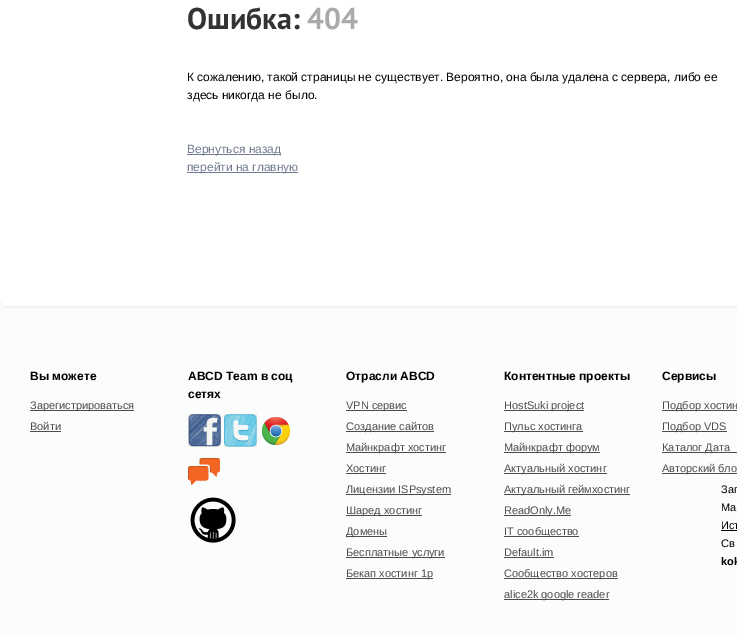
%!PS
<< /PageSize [737 637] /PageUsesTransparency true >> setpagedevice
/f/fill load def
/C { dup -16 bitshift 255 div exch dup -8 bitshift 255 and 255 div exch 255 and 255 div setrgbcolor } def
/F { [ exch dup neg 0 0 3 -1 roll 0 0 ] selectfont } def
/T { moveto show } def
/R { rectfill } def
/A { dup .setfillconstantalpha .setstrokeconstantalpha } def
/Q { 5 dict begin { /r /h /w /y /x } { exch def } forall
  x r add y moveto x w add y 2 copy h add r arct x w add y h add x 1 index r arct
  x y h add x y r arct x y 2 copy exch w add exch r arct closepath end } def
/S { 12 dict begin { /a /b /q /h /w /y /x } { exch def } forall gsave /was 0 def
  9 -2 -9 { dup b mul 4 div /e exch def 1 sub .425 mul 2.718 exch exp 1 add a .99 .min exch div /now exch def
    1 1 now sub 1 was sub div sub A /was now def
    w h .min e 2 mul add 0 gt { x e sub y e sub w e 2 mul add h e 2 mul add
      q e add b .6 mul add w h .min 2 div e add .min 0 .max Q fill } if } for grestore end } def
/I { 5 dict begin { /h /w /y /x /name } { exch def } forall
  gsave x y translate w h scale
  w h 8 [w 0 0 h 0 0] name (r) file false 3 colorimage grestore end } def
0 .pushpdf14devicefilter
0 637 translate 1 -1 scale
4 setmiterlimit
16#FBFCFC C
0 0 737 637 R
16#000000 C
0 -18 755 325 10 2.5 .05 S
16#FFFFFF C
0 -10 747 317 10 Q f
16#EEEEEE C
5 306 732 1 R
/PTSans-Bold 30 F
16#333333 C
(Ошибка:) 187 29 T
16#AAAAAA C
(404) 307 29 T
/LiberationSans-Regular 12 F
16#000000 C
(К сожалению, такой страницы не существует. Вероятно, она была удалена с сервера, либо ее) 187 81 T
(здесь никогда не было.) 187 99 T
16#727A90 C
187 154 94 1 R
(Вернуться назад) 187 153 T
187 172 111 1 R
(перейти на главную) 187 171 T
/LiberationSans-Bold 12 F
16#000000 C
(Вы можете) 30 380 T
16#4C4C4C C
30 410 104 1 R
/LiberationSans-Regular 11 F
(Зарегистрироваться) 30 409 T
(Войти) 30 430 T
30 431 31 1 R
/LiberationSans-Bold 12 F
16#000000 C
(ABCD Team в соц) 188 380 T
(сетях) 188 398 T
(1.rgb) 188 414 33 33 I
(2.rgb) 224 414 33 33 I
(3.rgb) 262 417 28 28 I
(4.rgb) 188 458 32 27 I
(5.rgb) 190 497 46 46 I
(Отрасли ABCD) 346 380 T
16#4C4C4C C
346 410 61 1 R
/LiberationSans-Regular 11 F
(VPN сервис) 346 409 T
346 431 88 1 R
(Создание сайтов) 346 430 T
346 452 100 1 R
(Майнкрафт хостинг) 346 451 T
(Хостинг) 346 472 T
346 473 40 1 R
346 494 105 1 R
(Лицензии ISPsystem) 346 493 T
346 515 76 1 R
(Шаред хостинг) 346 514 T
346 536 41 1 R
(Домены) 346 535 T
346 557 99 1 R
(Бесплатные услуги) 346 556 T
346 578 87 1 R
(Бекап хостинг 1р) 346 577 T
/LiberationSans-Bold 12 F
16#000000 C
(Контентные проекты) 504 380 T
16#4C4C4C C
504 410 80 1 R
/LiberationSans-Regular 11 F
(HostSuki project) 504 409 T
504 431 79 1 R
(Пульс хостинга) 504 430 T
504 452 96 1 R
(Майнкрафт форум) 504 451 T
504 473 103 1 R
(Актуальный хостинг) 504 472 T
504 494 126 1 R
(Актуальный геймхостинг) 504 493 T
504 515 67 1 R
(ReadOnly.Me) 504 514 T
504 536 75 1 R
(IT сообщество) 504 535 T
(Default.im) 504 556 T
504 557 50 1 R
504 578 114 1 R
(Сообщество хостеров) 504 577 T
504 599 105 1 R
(alice2k google reader) 504 598 T
/LiberationSans-Bold 12 F
16#000000 C
(Сервисы) 662 380 T
16#4C4C4C C
662 410 75 1 R
/LiberationSans-Regular 11 F
(Подбор хостин) 662 409 T
662 431 65 1 R
(Подбор VDS) 662 430 T
662 452 75 1 R
(Каталог Дата) 662 451 T
662 473 75 1 R
(Авторский бло) 662 472 T
16#000000 C
(Зап) 721 493 T
(Ма) 721 511 T
(Ист) 721 529 T
721 530 16 1 R
(Св) 721 547 T
/LiberationSans-Bold 11 F
(kok) 721 565 T
.poppdf14devicefilter showpage
